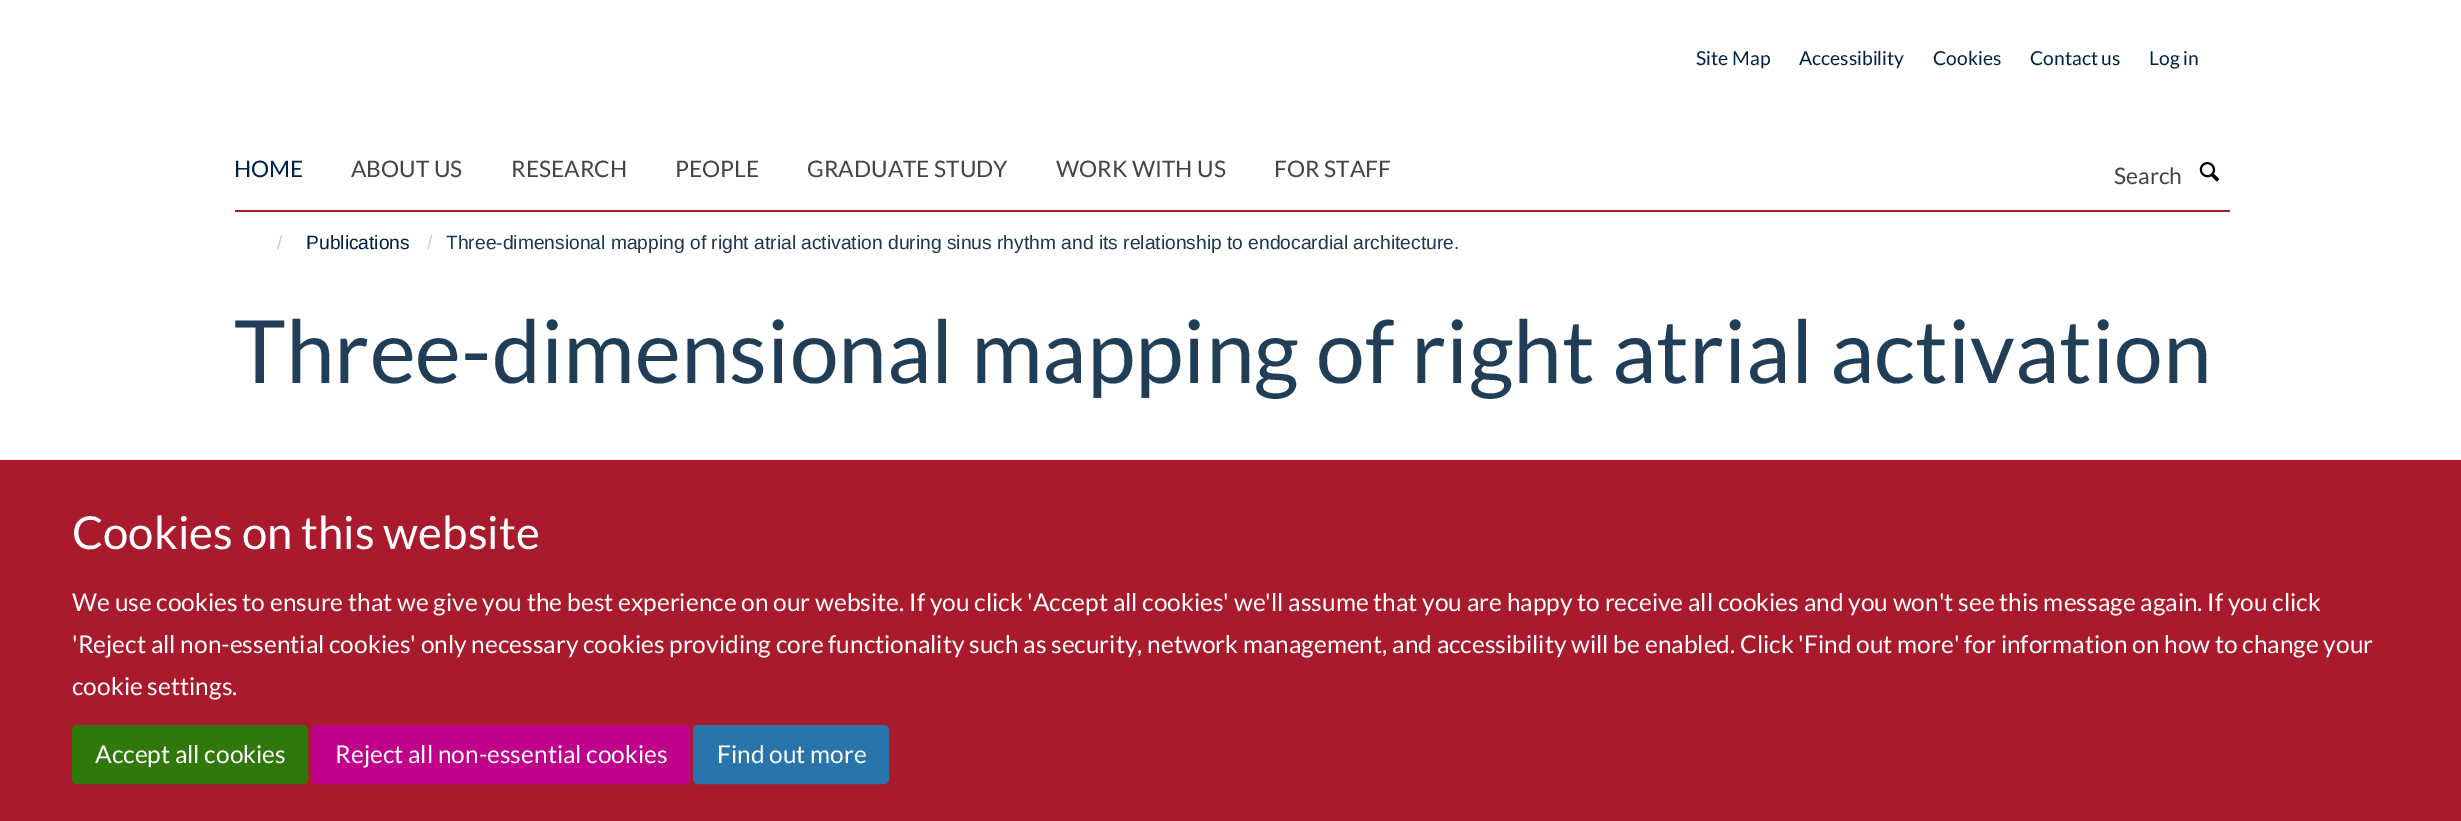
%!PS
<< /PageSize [2461 821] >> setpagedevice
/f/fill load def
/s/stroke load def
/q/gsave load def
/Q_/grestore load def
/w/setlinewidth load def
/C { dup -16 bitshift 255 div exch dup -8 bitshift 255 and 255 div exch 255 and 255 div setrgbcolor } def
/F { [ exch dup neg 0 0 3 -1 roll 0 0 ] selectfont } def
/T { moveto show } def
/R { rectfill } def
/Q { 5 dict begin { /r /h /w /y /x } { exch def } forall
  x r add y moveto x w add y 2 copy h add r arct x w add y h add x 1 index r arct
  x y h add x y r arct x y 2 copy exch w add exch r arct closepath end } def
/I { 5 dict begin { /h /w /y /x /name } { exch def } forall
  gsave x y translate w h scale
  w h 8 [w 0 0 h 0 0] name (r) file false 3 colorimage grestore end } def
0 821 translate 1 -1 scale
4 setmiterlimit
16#FFFFFF C
0 0 2461 821 R
/Lato-Regular 19.25 F
16#002147 C
(Site Map) 1696 65 T
(Accessibility) 1799 65 T
(Cookies) 1933 65 T
(Contact us) 2030 65 T
(Log in) 2149 65 T
16#AA1A2D C
235 210 1995 2 R
/Lato-Regular 22.75 F
16#002147 C
(HOME) 234 177 T
16#444444 C
(ABOUT US) 351 177 T
(RESEARCH) 511 177 T
(PEOPLE) 675 177 T
(GRADUATE STUDY) 807 177 T
(WORK WITH US) 1056 177 T
(FOR STAFF) 1274 177 T
(Search) 2114 184 T
(1.rgb) 2199 162 20 20 I
/LiberationSans-Regular 19.25 F
16#CCCCCC C
(/) 277 249 T
16#002147 C
(Publications) 306 249 T
16#CCCCCC C
(/) 427 249 T
16#1D3850 C
(Three-dimensional mapping of right atrial activation during sinus rhythm and its relationship to endocardial architecture.) 446 249 T
/Lato-Regular 87.5 F
16#203E58 C
(Three-dimensional mapping of right atrial activation) 234 383 T
16#AA1A2D C
0 460 2461 361 R
/Lato-Regular 45.5 F
16#FFFFFF C
(Cookies on this website) 72 549 T
/Lato-Regular 24.5 F
(We use cookies to ensure that we give you the best experience on our website. If you click 'Accept all cookies' we'll assume that you are happy to receive all cookies and you won't see this message again. If you click) 72 611 T
('Reject all non-essential cookies' only necessary cookies providing core functionality such as security, network management, and accessibility will be enabled. Click 'Find out more' for information on how to change your) 72 653 T
(cookie settings.) 72 695 T
16#31780A C
73 726 234 57 4 Q q f Q_
2 w
s
16#FFFFFF C
(Accept all cookies) 95 763 T
16#C0008D C
313 726 376 57 4 Q q f Q_
s
16#FFFFFF C
(Reject all non-essential cookies) 335 763 T
16#2A74AC C
694 726 194 57 4 Q q f Q_
s
16#FFFFFF C
(Find out more) 717 763 T
showpage
